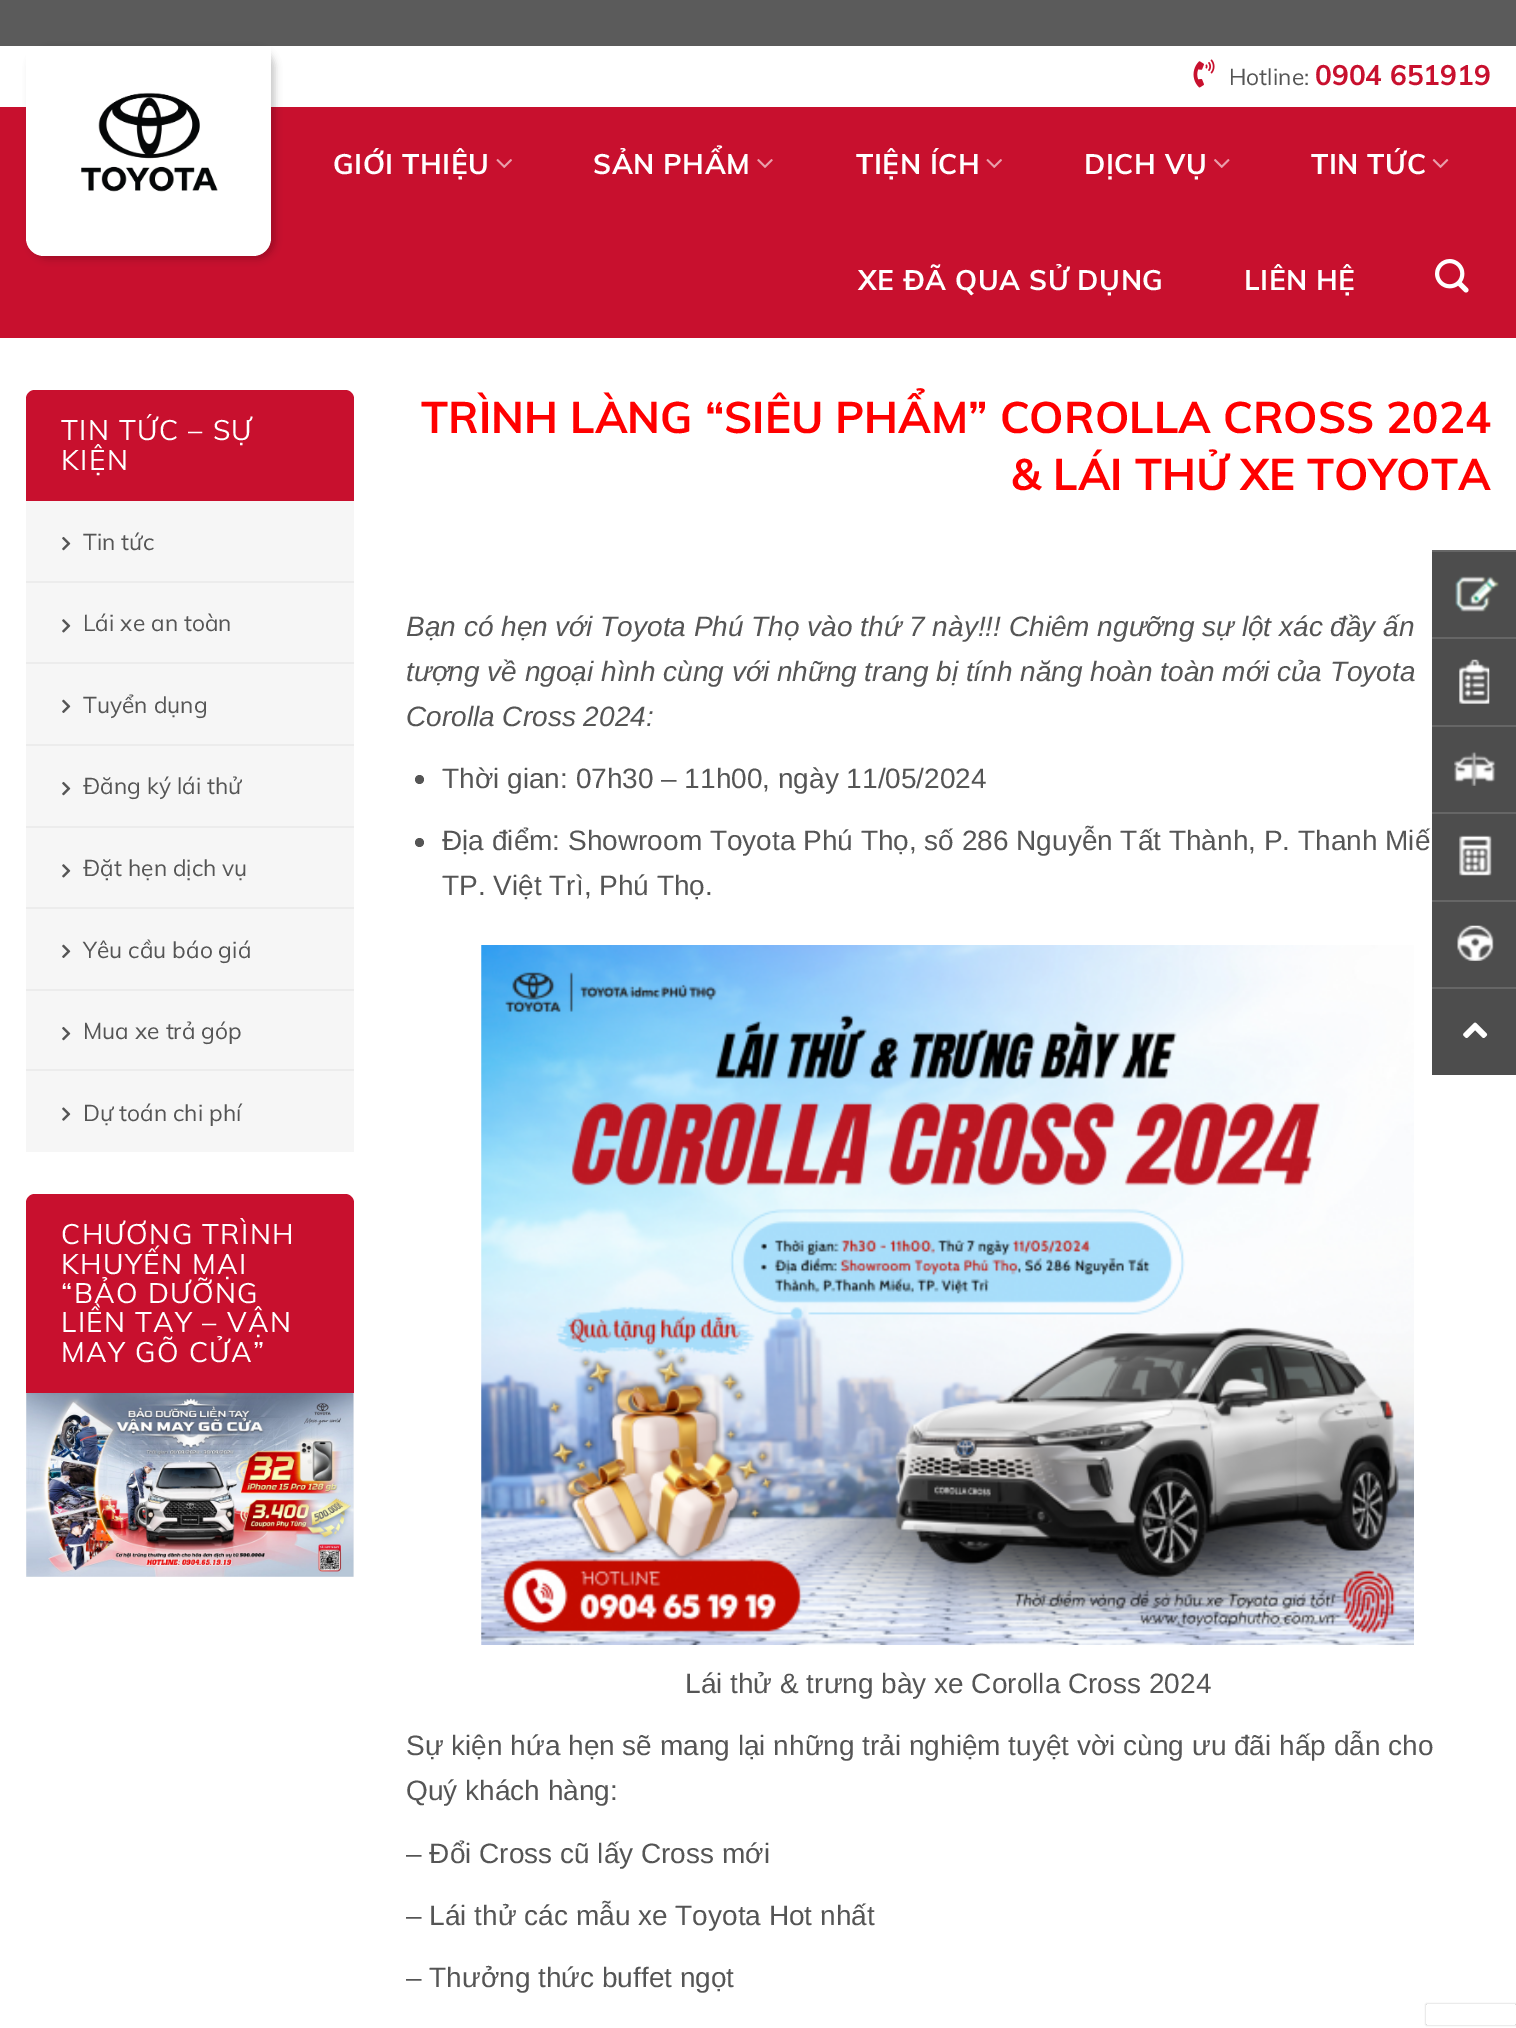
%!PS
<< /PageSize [1516 2028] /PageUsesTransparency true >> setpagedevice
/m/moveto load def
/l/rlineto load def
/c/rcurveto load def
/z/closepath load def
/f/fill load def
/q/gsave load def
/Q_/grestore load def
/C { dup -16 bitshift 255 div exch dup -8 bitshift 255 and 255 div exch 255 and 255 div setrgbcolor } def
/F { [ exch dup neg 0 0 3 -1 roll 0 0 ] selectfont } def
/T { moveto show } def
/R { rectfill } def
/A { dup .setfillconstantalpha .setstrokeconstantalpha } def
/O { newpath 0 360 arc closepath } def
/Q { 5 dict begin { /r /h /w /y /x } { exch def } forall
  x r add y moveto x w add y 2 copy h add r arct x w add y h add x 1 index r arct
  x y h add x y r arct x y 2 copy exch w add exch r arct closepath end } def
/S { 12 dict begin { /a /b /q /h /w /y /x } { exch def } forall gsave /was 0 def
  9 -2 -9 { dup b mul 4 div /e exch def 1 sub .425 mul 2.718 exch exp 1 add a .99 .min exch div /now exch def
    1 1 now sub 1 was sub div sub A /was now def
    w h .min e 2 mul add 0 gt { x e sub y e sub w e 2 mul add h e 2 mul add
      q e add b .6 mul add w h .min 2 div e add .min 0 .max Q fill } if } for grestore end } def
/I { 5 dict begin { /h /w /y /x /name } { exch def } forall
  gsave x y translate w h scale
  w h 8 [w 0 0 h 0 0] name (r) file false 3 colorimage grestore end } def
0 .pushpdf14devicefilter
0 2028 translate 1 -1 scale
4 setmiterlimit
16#5B5B5B C
0 0 1516 2028 R
16#FFFFFF C
0 46 1516 1982 R
16#C8102E C
0 107 1516 231 R
16#000000 C
30 49 245 210 18 3.5 .2 S
16#FFFFFF C
26 46 m 245 0 l 0 192 l 0 10 -8 18 -18 18 c -209 0 l -10 0 -18 -8 -18 -18 c z f
(1.rgb) 81 92 137 100 I
(2.rgb) 1193 59 22 29 I
/Muli-Regular 22.75 F
16#555555 C
(Hotline:) 1229 85 T
/Muli-Bold 28 F
16#C8102E C
(0904 651919) 1315 85 T
16#FFFFFF C
333 174 m .6 0 (GIỚI THIỆU) ashow
(3.rgb) 496 159 16 9 I
593 174 m .6 0 (SẢN PHẨM) ashow
(4.rgb) 757 159 16 9 I
856 174 m .6 0 (TIỆN ÍCH) ashow
(3.rgb) 986 159 16 9 I
1084 174 m .6 0 (DỊCH VỤ) ashow
(5.rgb) 1214 159 16 9 I
1311 174 m .6 0 (TIN TỨC) ashow
(6.rgb) 1432 159 17 9 I
858 290 m .6 0 (XE ĐÃ QUA SỬ DỤNG) ashow
1244 290 m .6 0 (LIÊN HỆ) ashow
(7.rgb) 1435 259 34 34 I
16#F6F6F6 C
35 390 m 310 0 l 5 0 9 4 9 9 c 0 753 l -328 0 l 0 -753 l 0 -5 4 -9 9 -9 c z f
16#C8102E C
35 390 m 310 0 l 5 0 9 4 9 9 c 0 102 l -328 0 l 0 -102 l 0 -5 4 -9 9 -9 c z f
/Muli-Regular 28 F
16#FFFFFF C
61 440 m 1.4 0 (TIN TỨC – SỰ) ashow
61 470 m 1.4 0 (KIỆN) ashow
(8.rgb) 62 536 9 15 I
/Muli-Regular 22.75 F
16#555555 C
(Tin tức) 83 550 T
16#ECECEC C
26 581 328 2 R
(9.rgb) 62 619 9 14 I
16#555555 C
(Lái xe an toàn) 83 631 T
16#ECECEC C
26 662 328 2 R
(10.rgb) 62 699 9 14 I
16#555555 C
(Tuyển dụng) 83 713 T
16#ECECEC C
26 744 328 2 R
(8.rgb) 62 781 9 15 I
16#555555 C
(Đăng ký lái thử) 83 794 T
16#ECECEC C
26 826 328 2 R
(9.rgb) 62 864 9 14 I
16#555555 C
(Đặt hẹn dịch vụ) 83 876 T
16#ECECEC C
26 907 328 2 R
(10.rgb) 62 944 9 14 I
16#555555 C
(Yêu cầu báo giá) 83 958 T
16#ECECEC C
26 989 328 2 R
(8.rgb) 62 1026 9 15 I
16#555555 C
(Mua xe trả góp) 83 1039 T
16#ECECEC C
26 1069 328 2 R
(11.rgb) 62 1107 9 14 I
16#555555 C
(Dự toán chi phí) 83 1121 T
16#F6F6F6 C
35 1194 m 310 0 l 5 0 9 4 9 9 c 0 374 l -328 0 l 0 -374 l 0 -5 4 -9 9 -9 c z f
16#C8102E C
35 1194 m 310 0 l 5 0 9 4 9 9 c 0 190 l -328 0 l 0 -190 l 0 -5 4 -9 9 -9 c z f
/Muli-Regular 28 F
16#FFFFFF C
61 1244 m 1.4 0 (CHƯƠNG TRÌNH) ashow
61 1274 m 1.4 0 (KHUYẾN MẠI) ashow
61 1303 m 1.4 0 (“BẢO DƯỠNG) ashow
61 1332 m 1.4 0 (LIỀN TAY – VẬN) ashow
61 1362 m 1.4 0 (MAY GÕ CỬA”) ashow
(12.rgb) 26 1393 328 184 I
/Muli-Bold 43.75 F
16#FF0000 C
(TRÌNH LÀNG “SIÊU PHẨM” COROLLA CROSS 2024) 421 433 T
(& LÁI THỬ XE TOYOTA) 1011 490 T
/LiberationSans-Italic 28 F
16#555555 C
(Bạn có hẹn với Toyota Phú Thọ vào thứ 7 này!!! Chiêm ngưỡng sự lột xác đầy ấn) 406 636 T
(tượng về ngoại hình cùng với những trang bị tính năng hoàn toàn mới của Toyota) 406 681 T
(Corolla Cross 2024:) 406 726 T
419.5 779.5 4.5 O f
/LiberationSans-Regular 28 F
(Thời gian: 07h30 – 11h00, ngày 11/05/2024) 442 788 T
419.5 842.5 4.5 O f
(Địa điểm: Showroom Toyota Phú Thọ, số 286 Nguyễn Tất Thành, P. Thanh Miế) 442 850 T
(TP. Việt Trì, Phú Thọ.) 442 895 T
(13.rgb) 481 945 933 700 I
(Lái thử & trưng bày xe Corolla Cross 2024) 685 1693 T
(Sự kiện hứa hẹn sẽ mang lại những trải nghiệm tuyệt vời cùng ưu đãi hấp dẫn cho) 406 1755 T
(Quý khách hàng:) 406 1800 T
(– Đổi Cross cũ lấy Cross mới) 406 1863 T
(– Lái thử các mẫu xe Toyota Hot nhất) 406 1925 T
(– Thưởng thức buffet ngọt) 406 1987 T
16#4D4D4D C
1432 552 84 85 R
16#666666 C
1432 550 84 2 R
(14.rgb) 1455 576 44 36 I
16#4D4D4D C
1432 639 84 86 R
16#666666 C
1432 637 84 2 R
(15.rgb) 1459 659 31 45 I
16#4D4D4D C
1432 727 84 85 R
16#666666 C
1432 725 84 2 R
(16.rgb) 1454 751 42 35 I
16#4D4D4D C
1432 814 84 86 R
16#666666 C
1432 812 84 2 R
(17.rgb) 1459 835 33 41 I
16#4D4D4D C
1432 902 84 85 R
16#666666 C
1432 900 84 2 R
(18.rgb) 1457 925 37 36 I
16#4D4D4D C
1432 989 84 86 R
16#666666 C
1432 987 84 2 R
(19.rgb) 1463 1022 25 16 I
q
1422 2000 m 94 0 l 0 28 l -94 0 l z 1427 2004 m 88 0 l .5 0 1 .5 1 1 c 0 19 l 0 .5 -.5 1 -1 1 c -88 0 l -.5 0 -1 -.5 -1 -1 c 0 -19 l 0 -.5 .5 -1 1 -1 c z eoclip newpath
16#C0C0C0 C
1426 2004 90 21 1 1 1 S
Q_
.poppdf14devicefilter showpage
